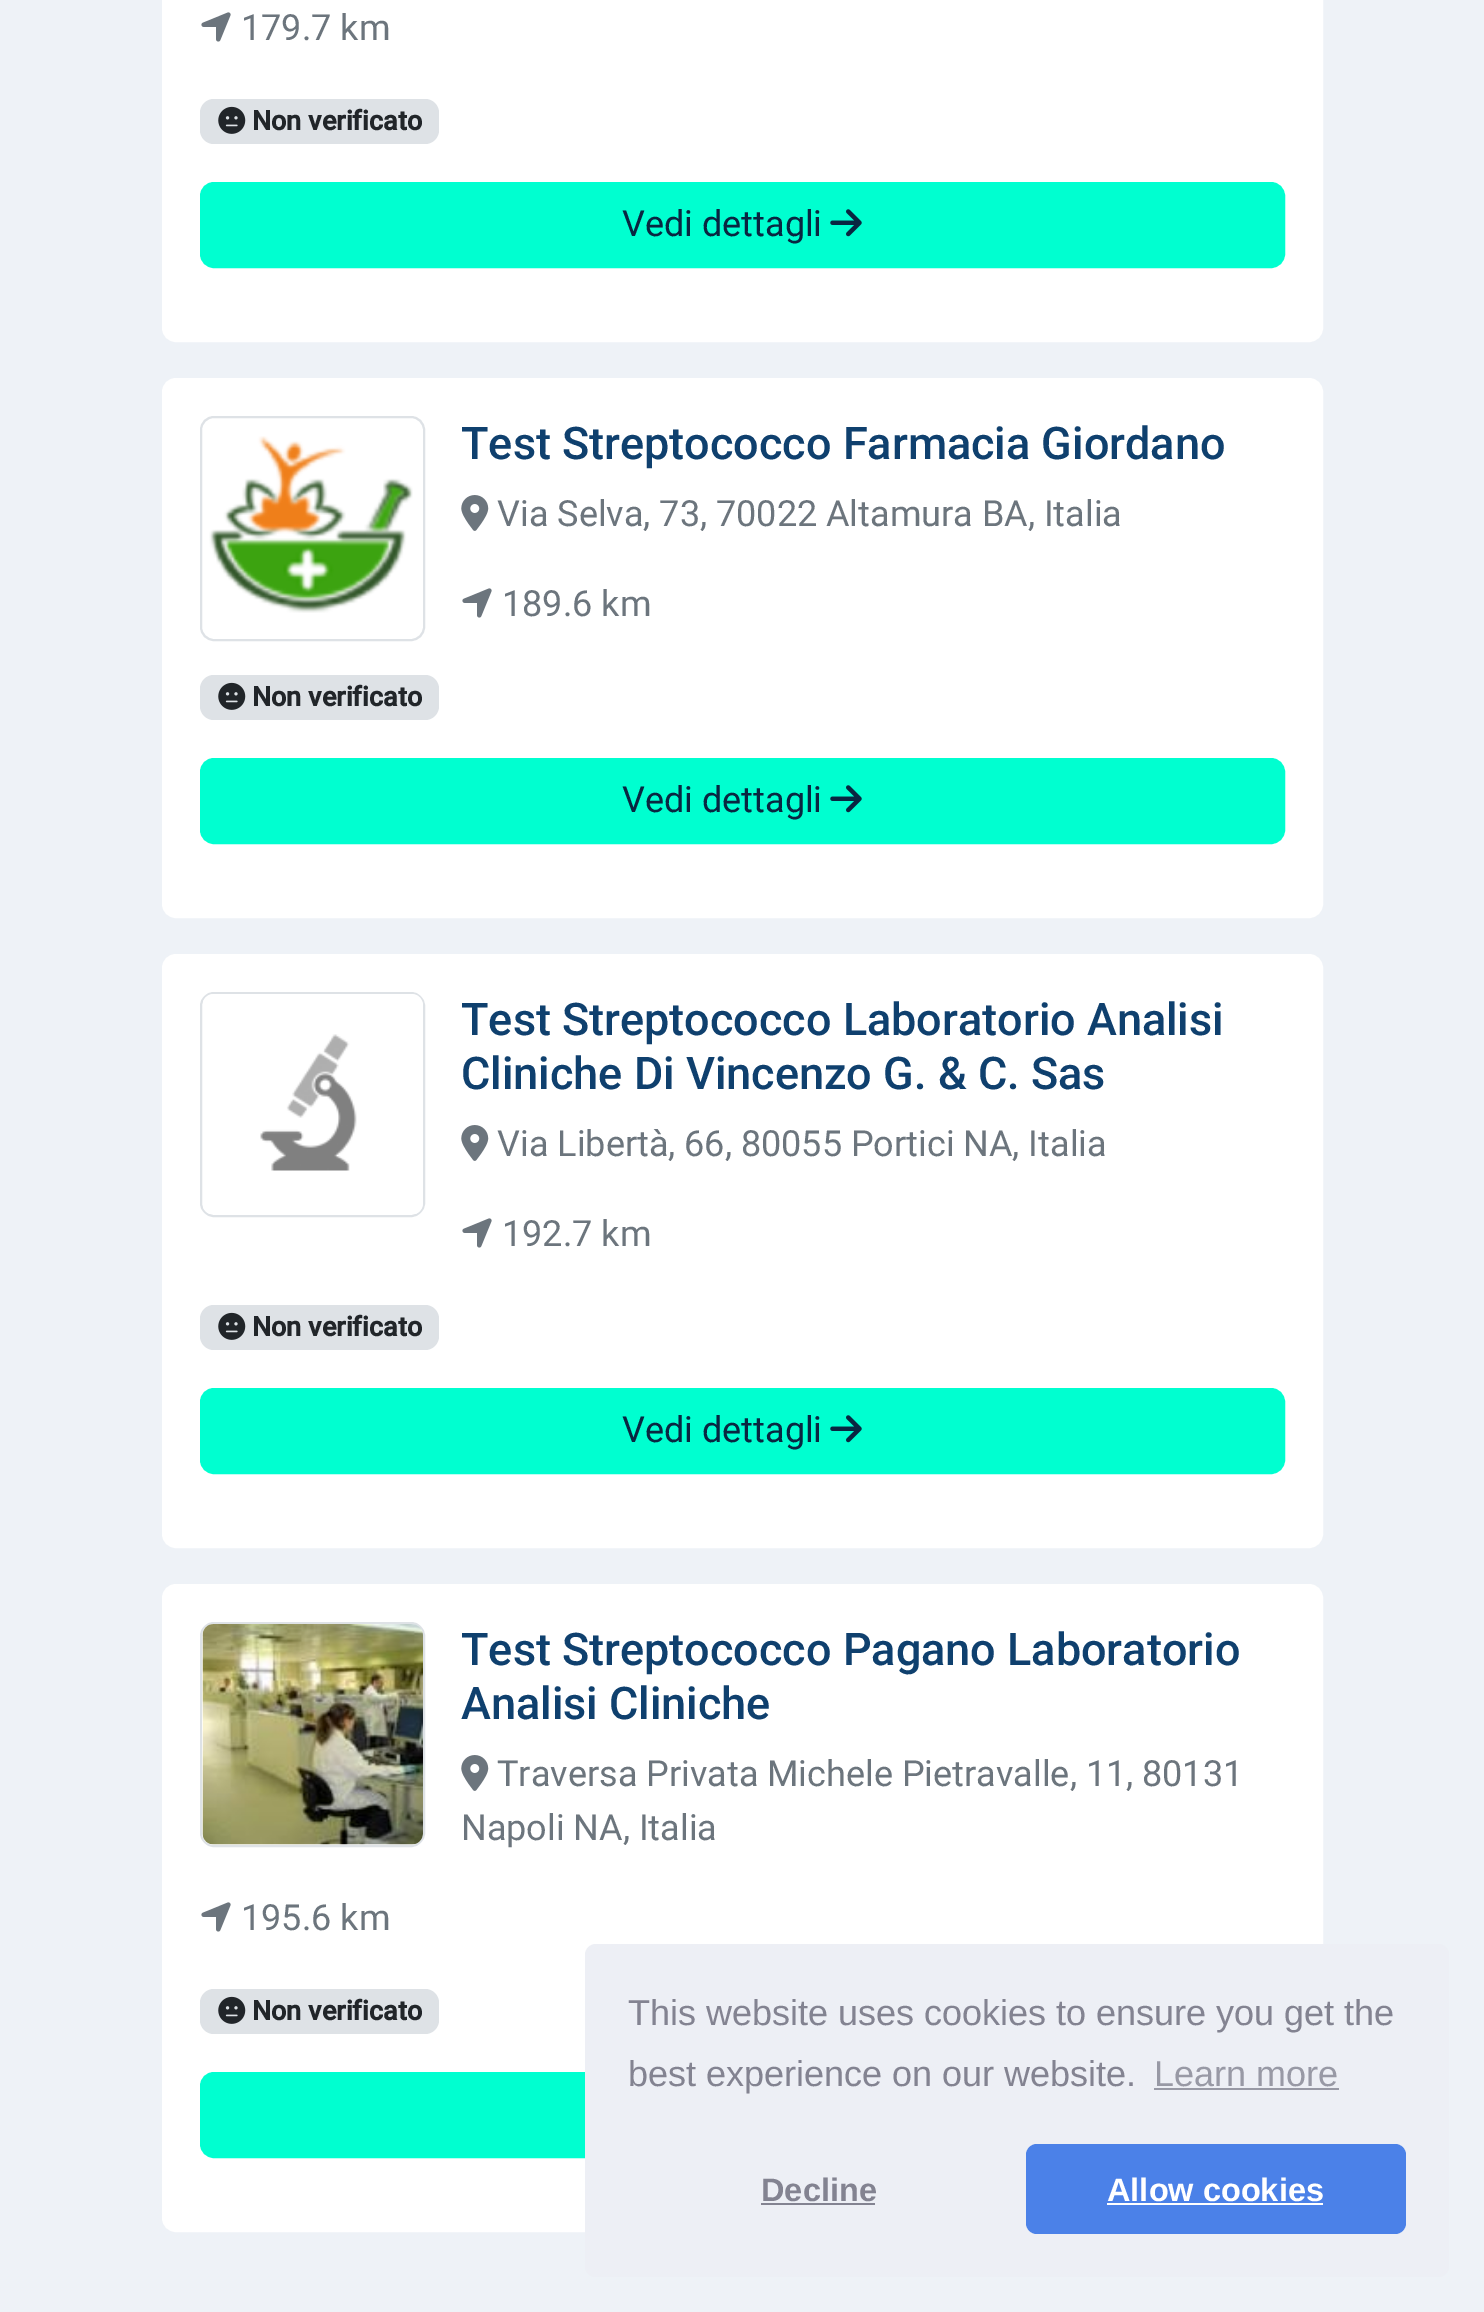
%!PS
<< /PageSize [1484 2312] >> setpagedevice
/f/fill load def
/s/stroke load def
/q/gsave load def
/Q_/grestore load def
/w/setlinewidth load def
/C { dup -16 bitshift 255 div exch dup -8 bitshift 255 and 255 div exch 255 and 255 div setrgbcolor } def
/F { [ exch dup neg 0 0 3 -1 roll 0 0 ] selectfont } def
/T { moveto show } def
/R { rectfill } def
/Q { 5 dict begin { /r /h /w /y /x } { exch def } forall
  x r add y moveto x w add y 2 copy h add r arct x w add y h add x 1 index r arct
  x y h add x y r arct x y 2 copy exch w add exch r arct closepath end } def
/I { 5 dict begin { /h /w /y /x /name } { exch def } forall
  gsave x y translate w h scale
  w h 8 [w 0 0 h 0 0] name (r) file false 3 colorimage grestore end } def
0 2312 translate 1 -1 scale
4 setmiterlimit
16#EEF2F7 C
0 0 1484 2312 R
16#FFFFFF C
163 -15 1159 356 13 Q q f Q_
2 w
s
(1.rgb) 201 12 30 30 I
/Roboto-Regular 36 F
16#6C757D C
(179.7 km) 241 40 T
16#DEE2E6 C
200 99 239 45 14 Q f
(2.rgb) 218 106 28 28 I
/Roboto-Bold 27 F
16#212529 C
(Non verificato) 252 130 T
16#00FFD0 C
201 183 1083 84 13 Q q f Q_
s
/Roboto-Regular 36 F
16#092641 C
(Vedi dettagli) 622 236 T
(3.rgb) 830 209 32 28 I
16#FFFFFF C
163 379 1159 538 13 Q q f Q_
s
16#DEE2E6 C
201 417 223 223 13 Q s
(4.rgb) 209 436 204 177 I
/Roboto-Medium 45 F
16#0F406E C
(Test Streptococco Farmacia Giordano) 461 459 T
(5.rgb) 461 495 28 36 I
/Roboto-Regular 36 F
16#6C757D C
(Via Selva, 73, 70022 Altamura BA, Italia) 497 526 T
(1.rgb) 462 588 30 30 I
(189.6 km) 502 616 T
16#DEE2E6 C
200 675 239 45 14 Q f
(2.rgb) 218 682 28 28 I
/Roboto-Bold 27 F
16#212529 C
(Non verificato) 252 706 T
16#00FFD0 C
201 759 1083 84 13 Q q f Q_
s
/Roboto-Regular 36 F
16#092641 C
(Vedi dettagli) 622 812 T
(3.rgb) 830 785 32 28 I
16#FFFFFF C
163 955 1159 592 13 Q q f Q_
s
16#DEE2E6 C
201 993 223 223 13 Q s
(6.rgb) 203 994 220 220 I
/Roboto-Medium 45 F
16#0F406E C
(Test Streptococco Laboratorio Analisi) 461 1035 T
(Cliniche Di Vincenzo G. & C. Sas) 461 1089 T
(5.rgb) 461 1125 28 36 I
/Roboto-Regular 36 F
16#6C757D C
(Via Libertà, 66, 80055 Portici NA, Italia) 497 1156 T
(1.rgb) 462 1218 30 30 I
(192.7 km) 502 1246 T
16#DEE2E6 C
200 1305 239 45 14 Q f
(2.rgb) 218 1312 28 28 I
/Roboto-Bold 27 F
16#212529 C
(Non verificato) 252 1336 T
16#00FFD0 C
201 1389 1083 84 13 Q q f Q_
s
/Roboto-Regular 36 F
16#092641 C
(Vedi dettagli) 622 1442 T
(3.rgb) 830 1415 32 28 I
16#FFFFFF C
163 1585 1159 646 13 Q q f Q_
s
16#DEE2E6 C
201 1623 223 223 13 Q s
(7.rgb) 202 1624 221 221 I
/Roboto-Medium 45 F
16#0F406E C
(Test Streptococco Pagano Laboratorio) 461 1665 T
(Analisi Cliniche) 461 1719 T
(5.rgb) 461 1755 28 36 I
/Roboto-Regular 36 F
16#6C757D C
(Traversa Privata Michele Pietravalle, 11, 80131) 497 1786 T
(Napoli NA, Italia) 461 1840 T
(1.rgb) 201 1902 30 30 I
(195.6 km) 241 1930 T
16#DEE2E6 C
200 1989 239 45 14 Q f
(2.rgb) 218 1996 28 28 I
/Roboto-Bold 27 F
16#212529 C
(Non verificato) 252 2020 T
16#00FFD0 C
201 2073 1083 84 13 Q q f Q_
s
16#EDEFF5 C
585 1944 864 333 11 Q f
/LiberationSans-Regular 36 F
16#838391 C
(This website uses cookies to ensure you get the) 628 2025 T
(best experience on our website.) 628 2086 T
16#9899A5 C
(Learn more) 1154 2086 T
1154 2088 185 2 R
/LiberationSans-Bold 32.5 F
16#838391 C
(Decline) 761 2201 T
761 2203 114 2 R
16#4B81E8 C
1026 2144 380 90 11 Q f
16#FFFFFF C
(Allow cookies) 1107 2201 T
1107 2203 216 2 R
showpage
